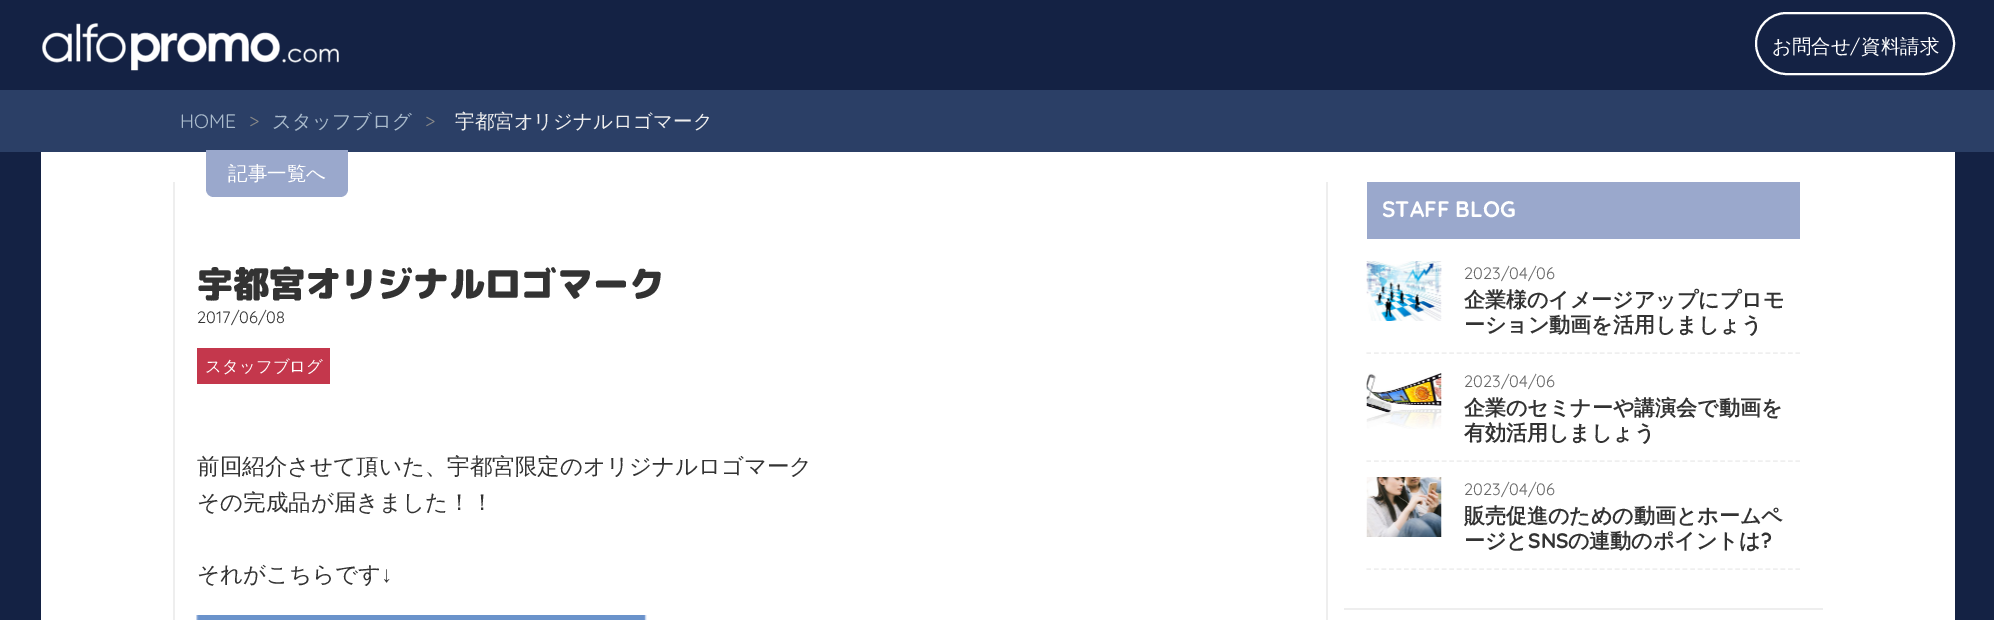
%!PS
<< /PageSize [1994 620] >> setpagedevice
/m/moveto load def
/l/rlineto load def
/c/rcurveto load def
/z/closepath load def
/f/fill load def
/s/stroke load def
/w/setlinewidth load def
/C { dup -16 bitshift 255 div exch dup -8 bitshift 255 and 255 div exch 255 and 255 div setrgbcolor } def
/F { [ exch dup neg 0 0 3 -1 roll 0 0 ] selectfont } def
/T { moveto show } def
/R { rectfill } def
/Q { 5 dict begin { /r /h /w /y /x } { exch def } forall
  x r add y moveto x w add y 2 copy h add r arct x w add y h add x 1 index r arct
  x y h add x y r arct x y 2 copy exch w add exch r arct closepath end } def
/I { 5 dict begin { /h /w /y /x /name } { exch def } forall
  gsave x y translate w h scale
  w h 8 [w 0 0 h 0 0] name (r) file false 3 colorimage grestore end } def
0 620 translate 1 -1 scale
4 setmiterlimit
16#142244 C
0 0 1994 620 R
(1.rgb) 42 23 297 48 I
16#FFFFFF C
2 w
1756 13 198 61 30.5 Q s
/WenQuanYiZenHei-Medium 19.5 F
(お問合せ) 1772 53 T
/Quicksand-Regular 19.5 F
(/) 1850 53 T
/WenQuanYiZenHei-Medium 19.5 F
(資料請求) 1861 53 T
16#2B3F66 C
0 90 1994 62 R
/Quicksand-Regular 19.5 F
16#AABBCC C
(HOME) 180 128 T
16#888888 C
(>) 249 128 T
/WenQuanYiZenHei-Medium 19.5 F
16#AABBCC C
(スタッフブログ) 272 128 T
/Quicksand-Regular 19.5 F
16#888888 C
(>) 425 128 T
/WenQuanYiZenHei-Medium 19.5 F
16#EEEEEE C
(宇都宮オリジナルロゴマーク) 455 128 T
16#FFFFFF C
41 152 1914 468 R
16#9AA8CC C
206 150 m 142 0 l 0 39 l 0 4.5 -3.5 8 -8 8 c -126 0 l -4.5 0 -8 -3.5 -8 -8 c z f
16#FFFFFF C
(記事一覧へ) 228 180 T
16#EEEEEE C
1326 182 2 438 R
173 182 2 438 R
/RoundedMplus1c-Black 36 F
16#333333 C
(宇都宮オリジナルロゴマーク) 197 297 T
/Quicksand-Regular 16.5 F
(2017/06/08) 197 323 T
16#C4374C C
197 348 133 36 R
/WenQuanYiZenHei-Medium 16.5 F
16#FFFFFF C
(スタッフブログ) 205 372 T
/WenQuanYiZenHei-Medium 22.5 F
16#333333 C
(前回紹介させて頂いた、宇都宮限定のオリジナルロゴマーク) 197 474 T
(その完成品が届きました！！) 197 510 T
(それがこちらです) 197 582 T
/LiberationSans-Regular 22.5 F
(↓) 381 582 T
(2.rgb) 196 615 451 5 I
16#EEEEEE C
1344 608 479 2 R
16#9AA8CC C
1367 182 433 57 R
/Quicksand-Bold 22.5 F
16#FFFFFF C
(STAFF BLOG) 1382 217 T
16#EFEFEF C
1.5 w
[4.5 3.03] 0 setdash
1366.5 353 m 433.5 0 l s
(3.rgb) 1366 261 76 60 I
/Quicksand-Regular 16.5 F
16#666666 C
(2023/04/06) 1464 279 T
/WenQuanYiZenHei-Bold 21 F
16#333333 C
(企業様のイメージアップにプロモ) 1464 307 T
(ーション動画を活用しましょう) 1464 332 T
16#EFEFEF C
1366.5 461 m 433.5 0 l s
(4.rgb) 1366 373 76 56 I
/Quicksand-Regular 16.5 F
16#666666 C
(2023/04/06) 1464 387 T
/WenQuanYiZenHei-Bold 21 F
16#333333 C
(企業のセミナーや講演会で動画を) 1464 415 T
(有効活用しましょう) 1464 440 T
16#EFEFEF C
1366.5 569 m 433.5 0 l s
(5.rgb) 1366 477 76 60 I
/Quicksand-Regular 16.5 F
16#666666 C
(2023/04/06) 1464 495 T
/WenQuanYiZenHei-Bold 21 F
16#333333 C
(販売促進のための動画とホームペ) 1464 523 T
(ージと) 1464 548 T
/Quicksand-Bold 21 F
(SNS) 1528 548 T
/WenQuanYiZenHei-Bold 21 F
(の連動のポイントは) 1568 548 T
/Quicksand-Bold 21 F
(?) 1761 548 T
showpage
